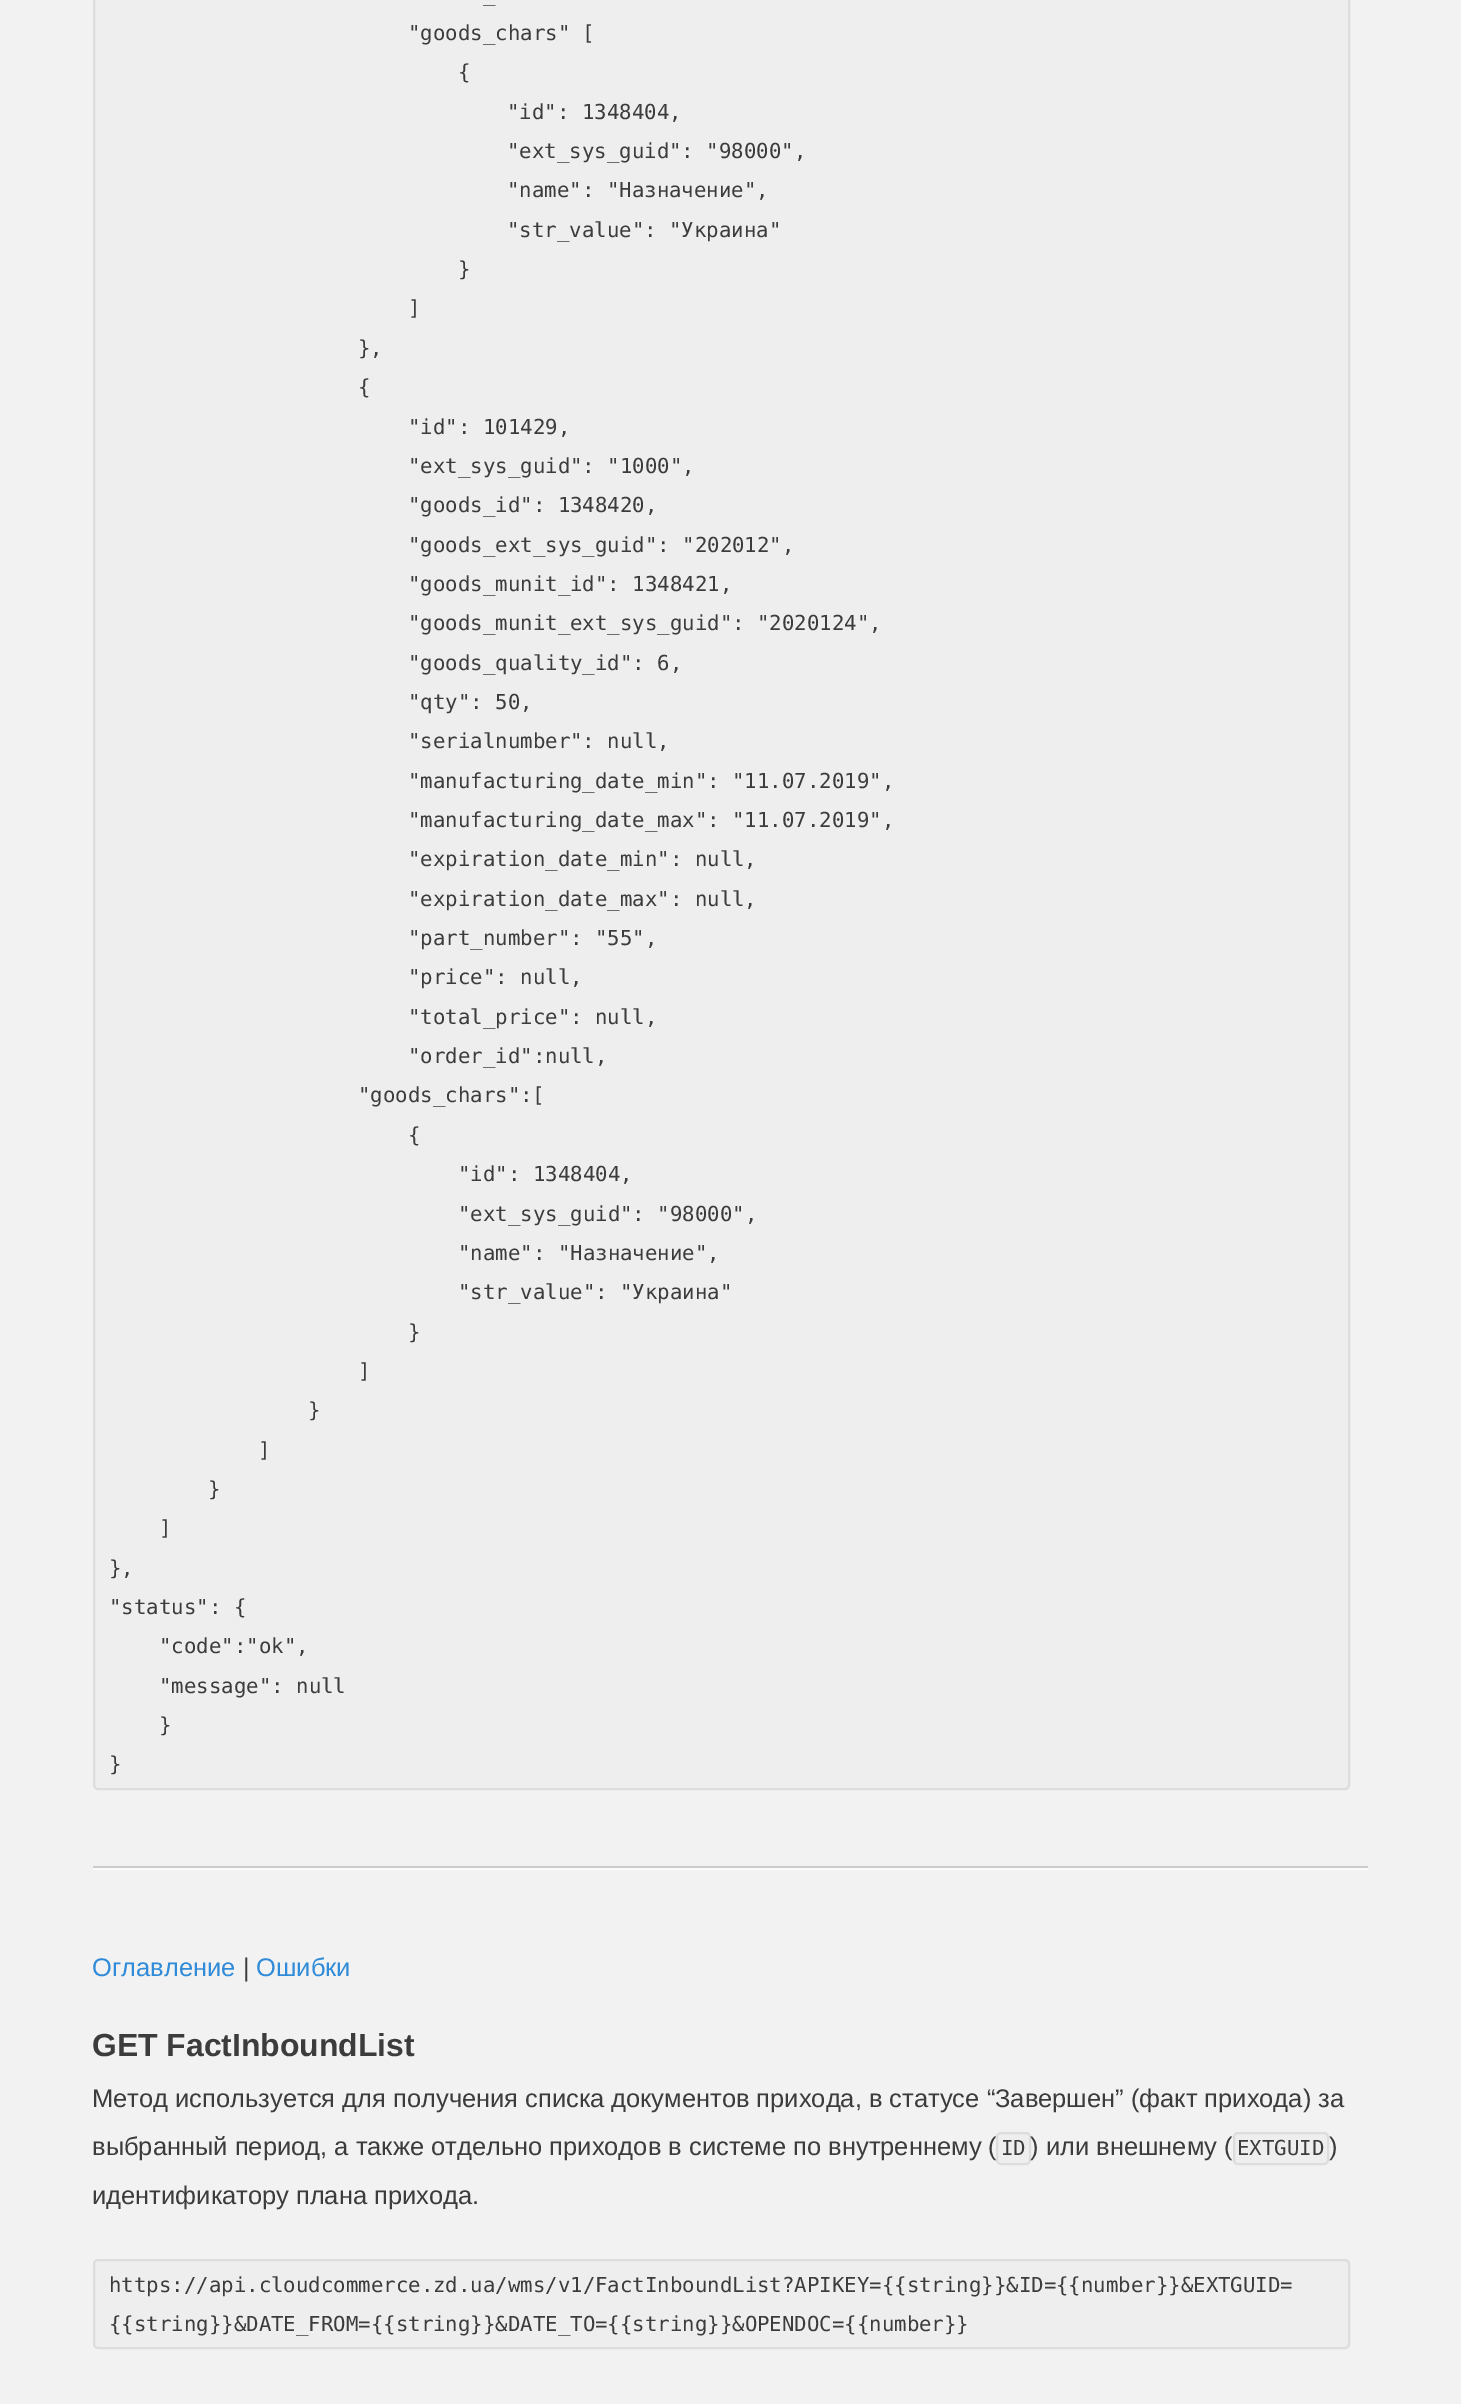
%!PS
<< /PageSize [1461 2404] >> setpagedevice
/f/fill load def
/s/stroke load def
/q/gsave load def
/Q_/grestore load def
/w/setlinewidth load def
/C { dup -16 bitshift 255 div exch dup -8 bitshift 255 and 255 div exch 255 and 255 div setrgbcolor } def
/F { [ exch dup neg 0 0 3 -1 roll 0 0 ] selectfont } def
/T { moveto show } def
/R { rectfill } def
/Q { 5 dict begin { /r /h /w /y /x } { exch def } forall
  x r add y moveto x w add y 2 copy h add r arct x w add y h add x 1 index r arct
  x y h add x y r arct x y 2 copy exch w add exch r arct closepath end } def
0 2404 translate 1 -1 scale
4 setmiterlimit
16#F2F2F2 C
0 0 1461 2404 R
16#EEEEEE C
94 -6 1255 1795 4 Q q f Q_
16#DDDDDD C
2 w
s
/DejaVuSansMono-Regular 20.7 F
16#3C3C3C C
(_) 483 1 T
("goods_chars" [) 408 40 T
({) 458 79 T
("id": 1348404,) 507 119 T
("ext_sys_guid": "98000",) 507 158 T
("name": "Назначение",) 507 197 T
("str_value": "Украина") 507 237 T
(}) 458 276 T
(]) 408 315 T
(},) 358 355 T
({) 358 394 T
("id": 101429,) 408 434 T
("ext_sys_guid": "1000",) 408 473 T
("goods_id": 1348420,) 408 512 T
("goods_ext_sys_guid": "202012",) 408 552 T
("goods_munit_id": 1348421,) 408 591 T
("goods_munit_ext_sys_guid": "2020124",) 408 630 T
("goods_quality_id": 6,) 408 670 T
("qty": 50,) 408 709 T
("serialnumber": null,) 408 748 T
("manufacturing_date_min": "11.07.2019",) 408 788 T
("manufacturing_date_max": "11.07.2019",) 408 827 T
("expiration_date_min": null,) 408 866 T
("expiration_date_max": null,) 408 906 T
("part_number": "55",) 408 945 T
("price": null,) 408 984 T
("total_price": null,) 408 1024 T
("order_id":null,) 408 1063 T
("goods_chars":[) 358 1102 T
({) 408 1142 T
("id": 1348404,) 458 1181 T
("ext_sys_guid": "98000",) 458 1221 T
("name": "Назначение",) 458 1260 T
("str_value": "Украина") 458 1299 T
(}) 408 1339 T
(]) 358 1378 T
(}) 308 1417 T
(]) 258 1457 T
(}) 208 1496 T
(]) 159 1535 T
(},) 109 1575 T
("status": {) 109 1614 T
("code":"ok",) 159 1653 T
("message": null) 159 1693 T
(}) 159 1732 T
(}) 109 1771 T
16#FCFCFC C
93 1868 1275 2 R
16#CCCCCC C
93 1866 1275 2 R
/LiberationSans-Regular 25.5 F
16#308BD8 C
(Оглавление) 92 1976 T
16#3C3C3C C
(|) 243 1976 T
16#308BD8 C
(Ошибки) 256 1976 T
/LiberationSans-Bold 31.9 F
16#3C3C3C C
(GET FactInboundList) 92 2056 T
/LiberationSans-Regular 25.5 F
(Метод используется для получения списка документов прихода, в статусе “Завершен” \(факт прихода\) за) 92 2107 T
(выбранный период, а также отдельно приходов в системе по внутреннему \() 92 2155 T
16#EEEEEE C
997 2133 33 31 4 Q q f Q_
16#DDDDDD C
s
/DejaVuSansMono-Regular 20.7 F
16#3C3C3C C
(ID) 1001 2155 T
/LiberationSans-Regular 25.5 F
(\) или внешнему \() 1030 2155 T
16#EEEEEE C
1234 2133 94 31 4 Q q f Q_
16#DDDDDD C
s
/DejaVuSansMono-Regular 20.7 F
16#3C3C3C C
(EXTGUID) 1237 2155 T
/LiberationSans-Regular 25.5 F
(\)) 1329 2155 T
(идентификатору плана прихода.) 92 2204 T
16#EEEEEE C
94 2260 1255 88 4 Q q f Q_
16#DDDDDD C
s
/DejaVuSansMono-Regular 20.7 F
16#3C3C3C C
(https://api.cloudcommerce.zd.ua/wms/v1/FactInboundList?APIKEY={{string}}&ID={{number}}&EXTGUID=) 109 2292 T
({{string}}&DATE_FROM={{string}}&DATE_TO={{string}}&OPENDOC={{number}}) 109 2331 T
showpage
